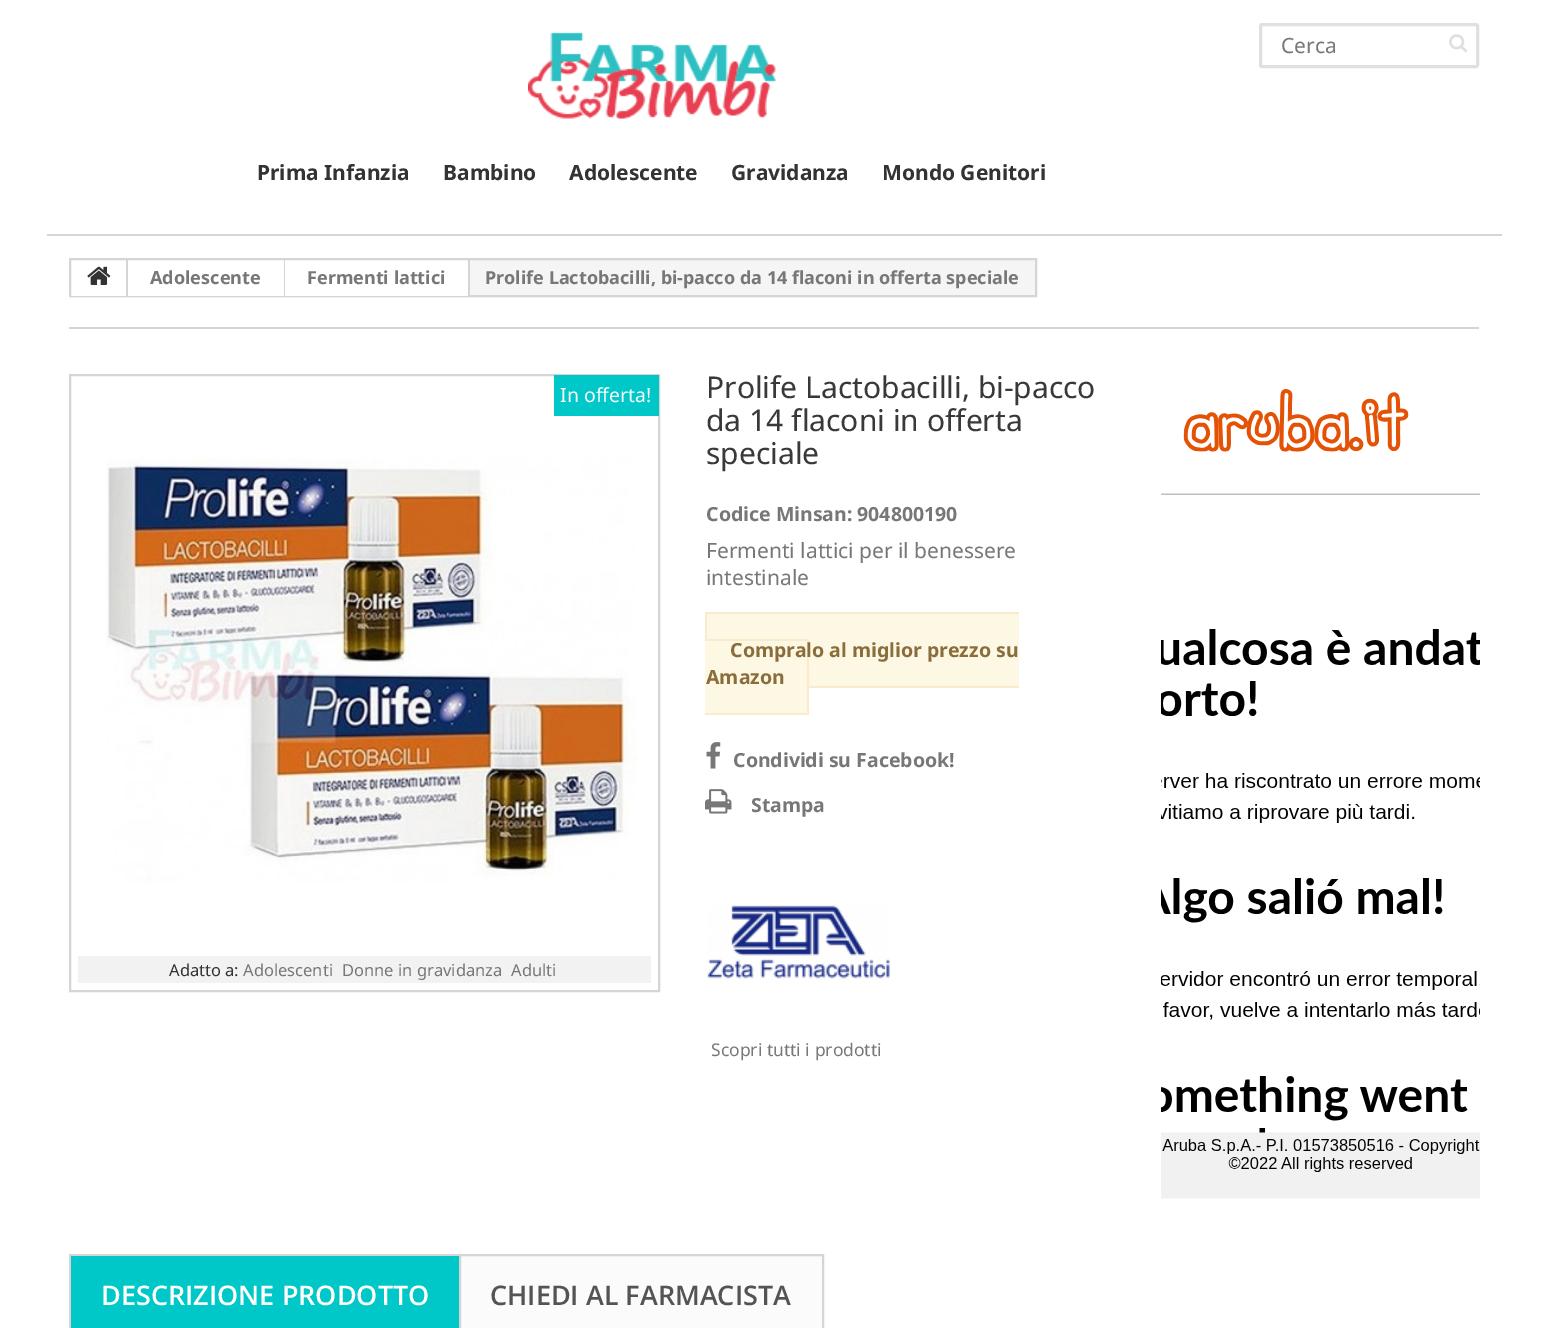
%!PS
<< /PageSize [1548 1328] >> setpagedevice
/m/moveto load def
/l/rlineto load def
/z/closepath load def
/f/fill load def
/s/stroke load def
/q/gsave load def
/Q_/grestore load def
/w/setlinewidth load def
/C { dup -16 bitshift 255 div exch dup -8 bitshift 255 and 255 div exch 255 and 255 div setrgbcolor } def
/F { [ exch dup neg 0 0 3 -1 roll 0 0 ] selectfont } def
/T { moveto show } def
/R { rectfill } def
/Q { 5 dict begin { /r /h /w /y /x } { exch def } forall
  x r add y moveto x w add y 2 copy h add r arct x w add y h add x 1 index r arct
  x y h add x y r arct x y 2 copy exch w add exch r arct closepath end } def
/I { 5 dict begin { /h /w /y /x /name } { exch def } forall
  gsave x y translate w h scale
  w h 8 [w 0 0 h 0 0] name (r) file false 3 colorimage grestore end } def
0 1328 translate 1 -1 scale
4 setmiterlimit
16#FFFFFF C
0 0 1548 1328 R
16#E0E0E0 C
3 w
1260.5 24.5 217 42 1.5 Q s
/NotoSans-Regular 21 F
16#777777 C
(Cerca) 1281 53 T
(1.rgb) 1449 34 18 19 I
(2.rgb) 528 32 248 87 I
/NotoSans-Bold 21 F
16#333333 C
(Prima Infanzia) 257 180 T
(Bambino) 443 180 T
(Adolescente) 569 180 T
(Gravidanza) 731 180 T
(Mondo Genitori) 882 180 T
16#D6D4D4 C
47 234 1455 2 R
16#F5F5F5 C
470 260 565 35 R
16#D6D4D4 C
2 w
70 259 966 37 rectstroke
16#FFFFFF C
71 295 55 1 R
16#D6D4D4 C
126 260 2 36 R
(3.rgb) 87 266 24 19 I
16#FFFFFF C
128 295 156 1 R
16#D6D4D4 C
284 260 1 36 R
/NotoSans-Bold 18 F
16#777777 C
(Adolescente) 150 284 T
16#FFFFFF C
285 295 183 1 R
16#D6D4D4 C
468 260 2 36 R
16#777777 C
(Fermenti lattici) 307 284 T
(Prolife Lactobacilli, bi-pacco da 14 flaconi in offerta speciale) 485 284 T
16#D6D4D4 C
69 327 1410 2 R
70 375 589 616 rectstroke
16#00C8C8 C
554 375 105 41 R
/NotoSans-Regular 19.5 F
16#FFFFFF C
(In offerta!) 560 402 T
(4.rgb) 106 458 531 425 I
16#F2F2F2 C
78 956 573 27 R
/NotoSans-Regular 16.5 F
16#333333 C
(Adatto a:) 169 976 T
16#777777 C
(Adolescenti) 243 976 T
(Donne in gravidanza) 342 976 T
(Adulti) 511 976 T
/NotoSans-Regular 30 F
16#3A3939 C
(Prolife Lactobacilli, bi-pacco) 706 398 T
(da 14 flaconi in offerta) 706 431 T
(speciale) 706 464 T
/NotoSans-Bold 19.5 F
16#777777 C
(Codice Minsan: 904800190) 706 521 T
/NotoSans-Regular 21 F
(Fermenti lattici per il benessere) 706 558 T
(intestinale) 706 585 T
16#FCF8E3 C
707 614 312 72 R
705 641 102 72 R
16#FAEBCC C
705 639 104 2 R
807 639 2 75 R
/NotoSans-Bold 19.5 F
16#8A6D3B C
(Compralo al miglior prezzo su) 730 657 T
16#FAEBCC C
705 612 314 2 R
705 612 2 27 R
16#8A6D3B C
(Amazon) 706 684 T
16#FAEBCC C
809 686 210 2 R
705 713 104 2 R
(5.rgb) 706 742 15 27 I
16#777777 C
(Condividi su Facebook!) 733 767 T
(6.rgb) 705 789 27 25 I
(Stampa) 751 812 T
(7.rgb) 707 905 183 74 I
/NotoSans-Regular 17.5 F
(Scopri tutti i prodotti) 711 1056 T
(8.rgb) 1161 389 319 810 I
16#00C8C8 C
71 1256 388 72 R
/OpenSans-SemiBold 27 F
16#FFFFFF C
(DESCRIZIONE PRODOTTO) 101 1305 T
16#D6D4D4 C
69 1254 392 2 R
69 1254 2 74 R
16#FBFBFB C
460 1255 m 363 0 l 0 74 l -363 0 l z q f Q_
16#D6D4D4 C
s
16#555454 C
(CHIEDI AL FARMACISTA) 490 1305 T
showpage
